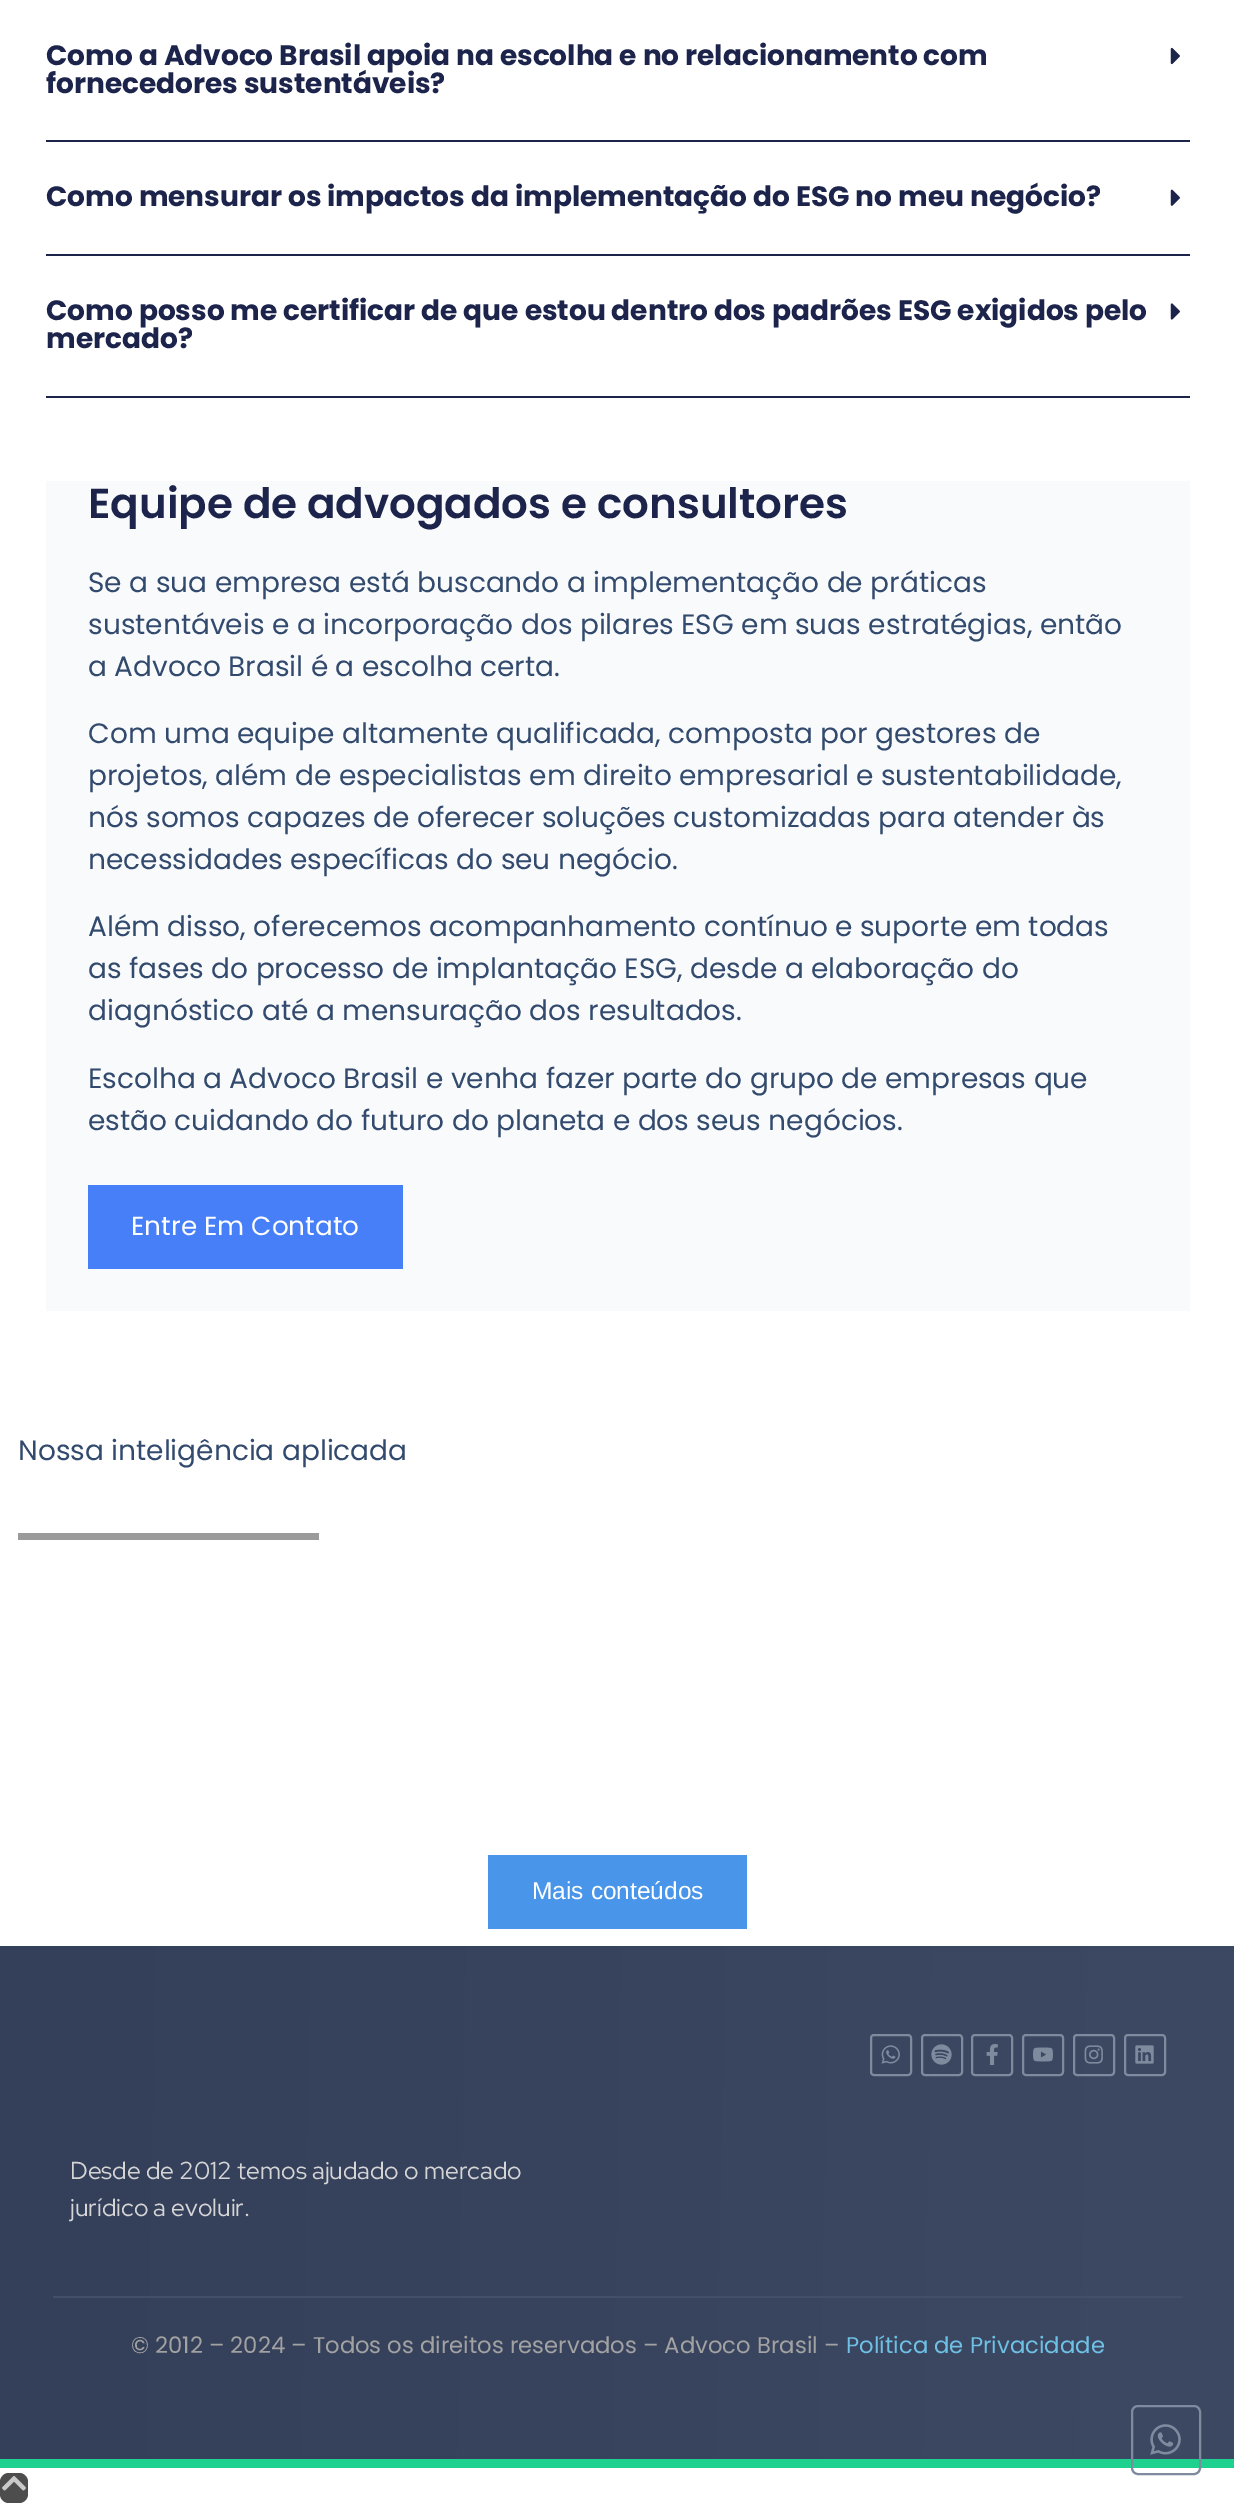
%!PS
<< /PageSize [1234 2509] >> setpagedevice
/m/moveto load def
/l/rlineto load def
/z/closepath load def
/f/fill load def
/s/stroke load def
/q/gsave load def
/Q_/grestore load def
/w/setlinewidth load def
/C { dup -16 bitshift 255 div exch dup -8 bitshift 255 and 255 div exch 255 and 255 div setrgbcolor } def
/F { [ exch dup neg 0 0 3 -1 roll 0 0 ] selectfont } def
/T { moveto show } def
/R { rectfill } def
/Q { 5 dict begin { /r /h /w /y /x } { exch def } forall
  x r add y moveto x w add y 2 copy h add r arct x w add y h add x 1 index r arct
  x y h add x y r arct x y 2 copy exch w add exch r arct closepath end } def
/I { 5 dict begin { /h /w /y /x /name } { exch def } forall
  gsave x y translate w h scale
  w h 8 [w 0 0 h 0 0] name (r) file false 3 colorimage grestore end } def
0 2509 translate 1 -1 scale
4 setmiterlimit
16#FFFFFF C
0 0 1234 2509 R
16#1C244B C
46 140 1144 2 R
/Poppins-Bold 28 F
(Como a Advoco Brasil apoia na escolha e no relacionamento com) 46 65 T
(1.rgb) 1170 47 10 18 I
(fornecedores sustentáveis?) 46 93 T
46 254 1144 2 R
(Como mensurar os impactos da implementação do ESG no meu negócio?) 46 206 T
(2.rgb) 1170 189 10 17 I
46 396 1144 2 R
(Como posso me certificar de que estou dentro dos padrões ESG exigidos pelo) 46 320 T
(3.rgb) 1170 303 10 17 I
(mercado?) 46 348 T
16#F9FAFC C
46 481 1144 830 R
/Poppins-SemiBold 42 F
16#1C244B C
(Equipe de advogados e consultores) 88 518 T
/Poppins-Regular 28 F
16#324A6D C
(Se a sua empresa está buscando a implementação de práticas) 88 592 T
(sustentáveis e a incorporação dos pilares ESG em suas estratégias, então) 88 634 T
(a Advoco Brasil é a escolha certa.) 88 676 T
(Com uma equipe altamente qualificada, composta por gestores de) 88 743 T
(projetos, além de especialistas em direito empresarial e sustentabilidade,) 88 785 T
(nós somos capazes de oferecer soluções customizadas para atender às) 88 827 T
(necessidades específicas do seu negócio.) 88 869 T
(Além disso, oferecemos acompanhamento contínuo e suporte em todas) 88 936 T
(as fases do processo de implantação ESG, desde a elaboração do) 88 978 T
(diagnóstico até a mensuração dos resultados.) 88 1020 T
(Escolha a Advoco Brasil e venha fazer parte do grupo de empresas que) 88 1088 T
(estão cuidando do futuro do planeta e dos seus negócios.) 88 1130 T
16#467FF7 C
88 1185 315 84 R
/Poppins-Regular 26.25 F
16#FFFFFF C
(Entre Em Contato) 131 1235 T
/Poppins-Regular 28 F
16#324A6D C
(Nossa inteligência aplicada) 18 1460 T
16#9C9B9B C
18 1533 301 7 R
16#4895E9 C
488 1855 259 74 R
/LiberationSans-Regular 24.5 F
16#FFFFFF C
(Mais conteúdos) 532 1899 T
q 0 1946 m 1234 0 l 0 513 l -1234 0 l z clip newpath
<< /ShadingType 2 /ColorSpace /DeviceRGB /Coords [-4.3 2192 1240 2213] /Extend [true true] /Function << /FunctionType 2 /Domain [0 1] /C0 [.204 .247 .353] /C1 [.239 .282 .388] /N 1 >> >> shfill Q_
/RedHatDisplay-Regular 24.5 F
16#D5D5D5 C
(Desde de 2012 temos ajudado o mercado) 70 2179 T
(jurídico a evoluir.) 70 2216 T
16#7E8B9E C
2 w
871 2035 40 40 3 Q s
(4.rgb) 881 2045 19 19 I
922 2035 40 40 3 Q s
(5.rgb) 931 2044 21 21 I
972 2035 40 40 3 Q s
(6.rgb) 986 2044 12 21 I
1023 2035 40 40 3 Q s
(7.rgb) 1033 2047 20 15 I
1074 2035 40 40 3 Q s
(8.rgb) 1084 2045 19 19 I
1125 2035 40 40 3 Q s
(9.rgb) 1135 2045 19 19 I
16#1FD18E C
0 2459 1234 9 R
16#7E8B9E C
1132 2406 68 68 6 Q s
(10.rgb) 1150 2424 31 31 I
16#434E68 C
53 2296 1130 2 R
/Poppins-Regular 22.75 F
16#A2A2A2 C
(© 2012 – 2024 – Todos os direitos reservados – Advoco Brasil –) 131 2353 T
16#6EC1E4 C
(Política de Privacidade) 846 2353 T
16#4D4D4D C
0 2473 28 30 9 Q f
(11.rgb) 2 2476 24 15 I
showpage
